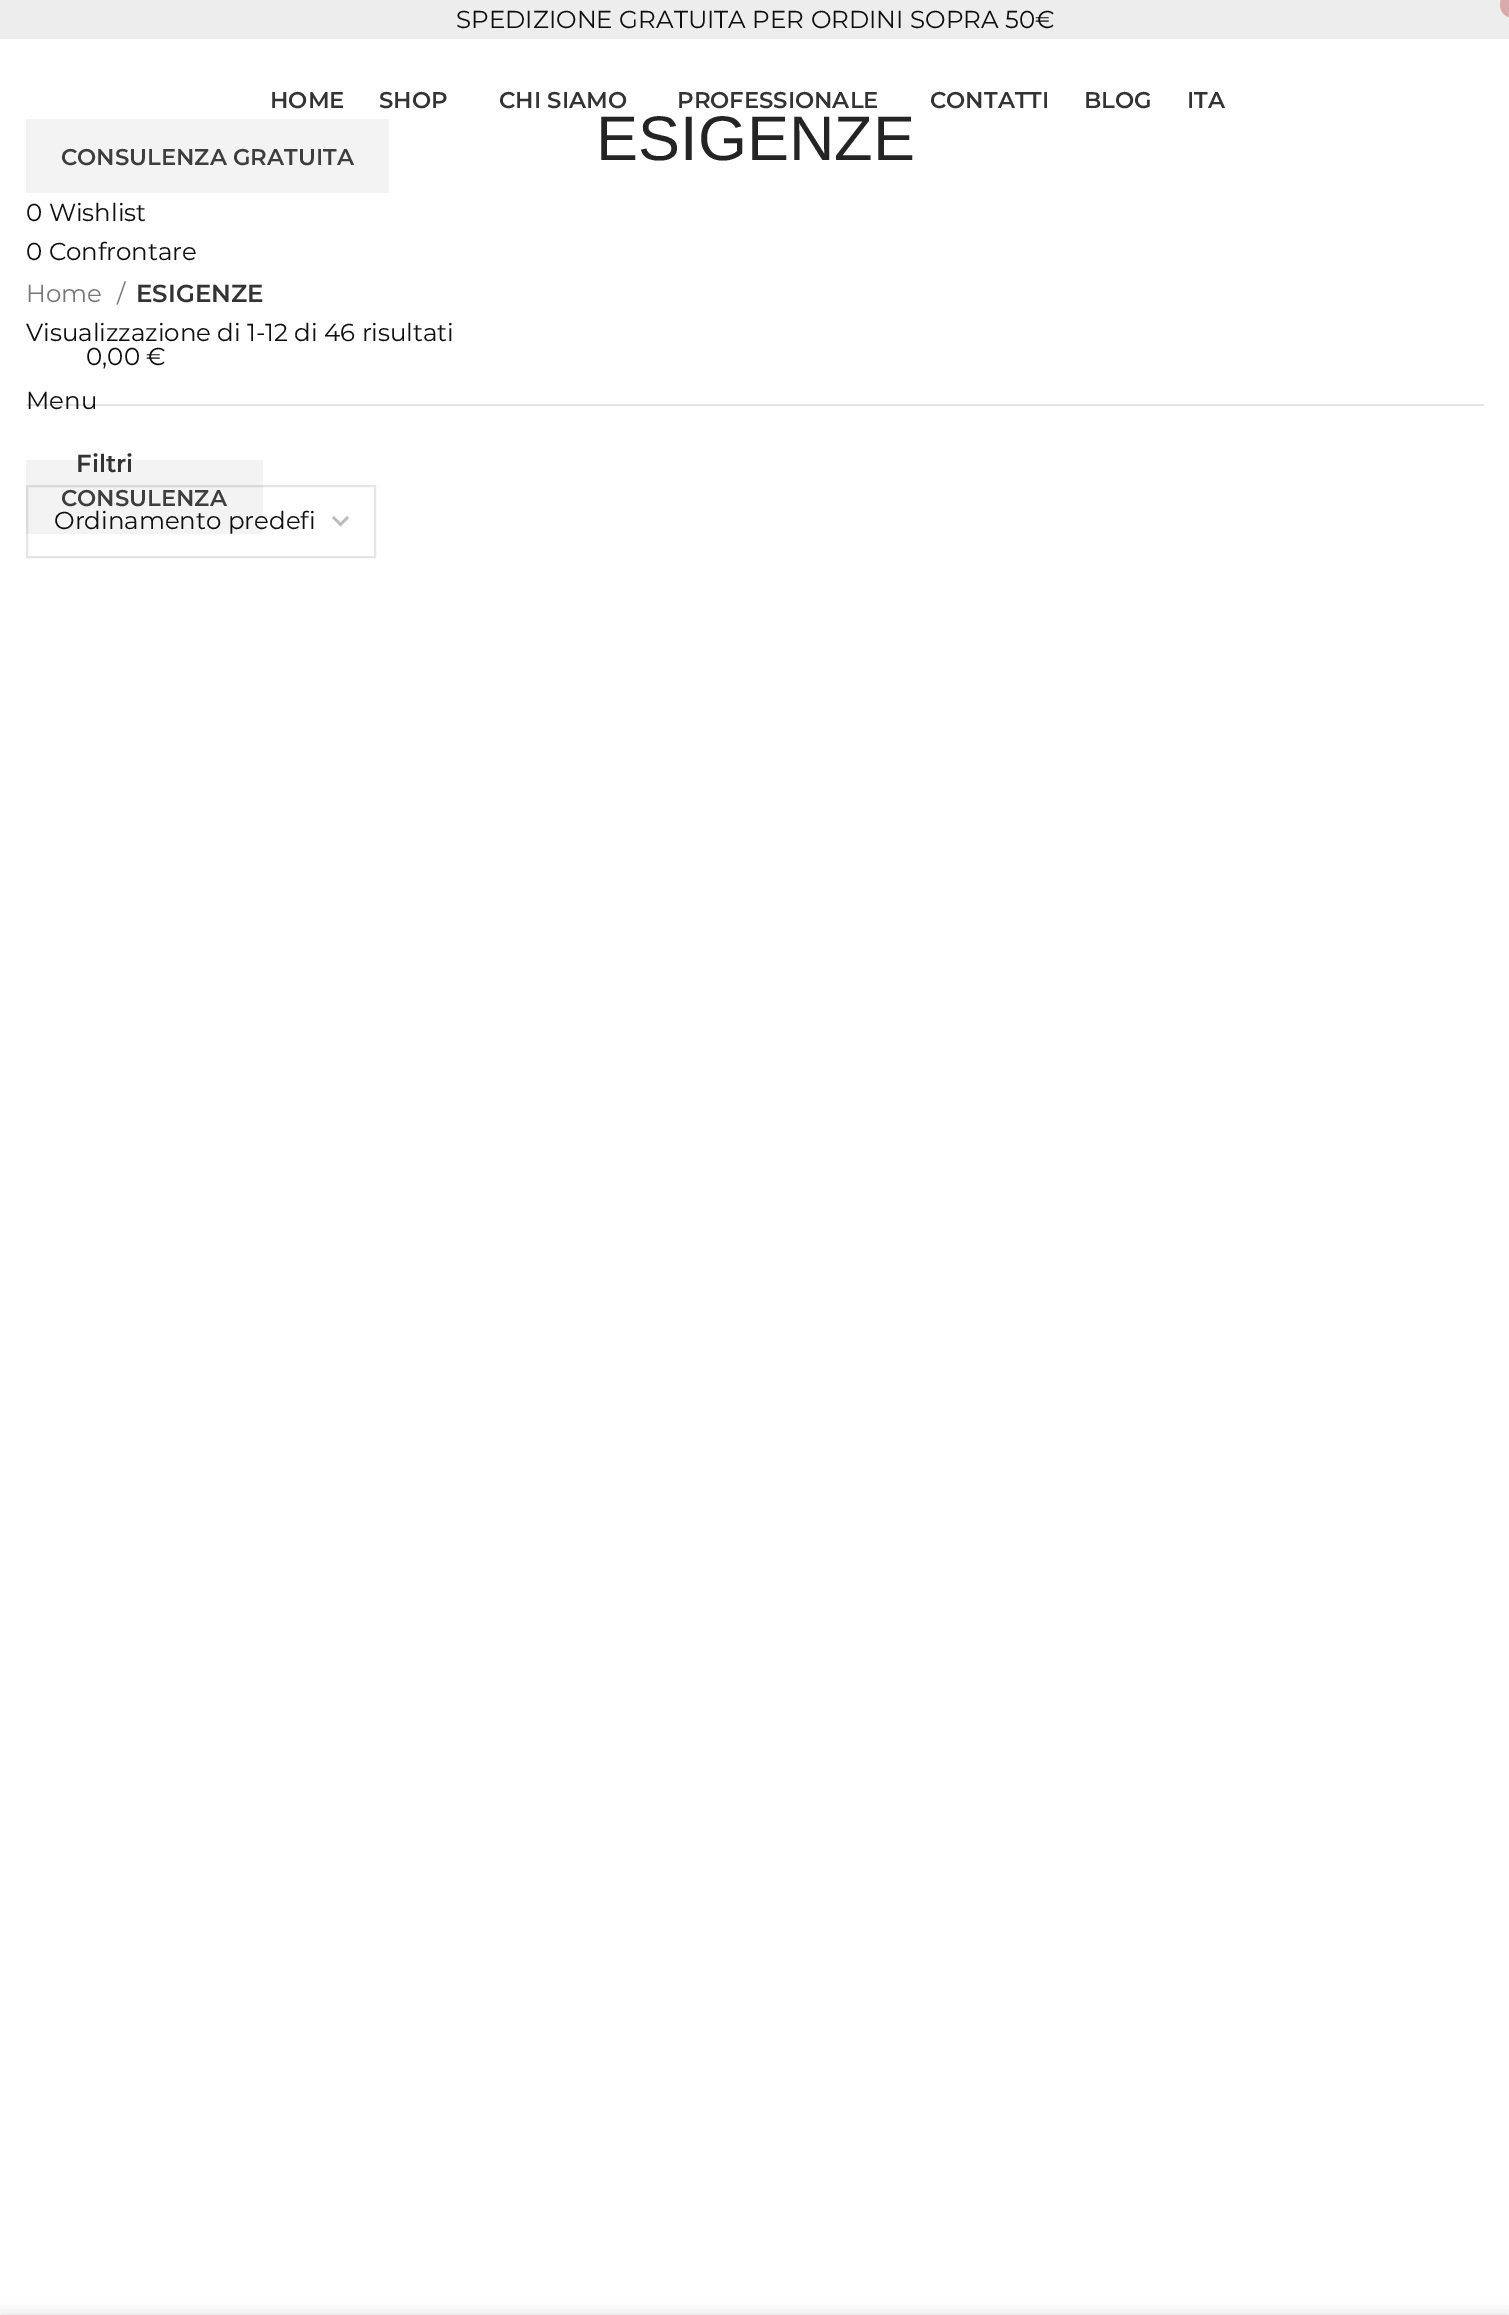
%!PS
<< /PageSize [1509 2315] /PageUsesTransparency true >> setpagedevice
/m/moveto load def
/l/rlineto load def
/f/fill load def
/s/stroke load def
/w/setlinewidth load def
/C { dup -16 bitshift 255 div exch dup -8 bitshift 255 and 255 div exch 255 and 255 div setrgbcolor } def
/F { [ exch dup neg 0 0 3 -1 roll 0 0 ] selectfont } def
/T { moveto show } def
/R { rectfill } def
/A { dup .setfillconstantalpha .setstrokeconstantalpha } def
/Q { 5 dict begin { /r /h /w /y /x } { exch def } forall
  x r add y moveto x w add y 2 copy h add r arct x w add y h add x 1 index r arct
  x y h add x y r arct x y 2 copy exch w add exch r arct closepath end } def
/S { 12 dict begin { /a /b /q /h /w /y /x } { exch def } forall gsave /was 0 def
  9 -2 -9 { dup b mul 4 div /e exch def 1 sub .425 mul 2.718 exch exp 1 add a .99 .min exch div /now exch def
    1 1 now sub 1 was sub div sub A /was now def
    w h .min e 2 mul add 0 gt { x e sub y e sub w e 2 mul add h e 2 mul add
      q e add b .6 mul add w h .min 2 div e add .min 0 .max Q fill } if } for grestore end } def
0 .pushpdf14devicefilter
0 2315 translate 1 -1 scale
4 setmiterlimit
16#FFFFFF C
0 0 1509 2315 R
16#EDEDED C
0 0 1509 39 R
/Montserrat-Regular 24.5 F
16#0F0F0F C
(SPEDIZIONE GRATUITA PER ORDINI SOPRA 50€) 456 28 T
16#D9ACAC C
1500 -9 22 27 13 Q f
/Montserrat-SemiBold 22.75 F
16#333333 C
(HOME) 270 108 T
(SHOP) 379 108 T
(CHI SIAMO) 499 108 T
(PROFESSIONALE) 677 108 T
(CONTATTI) 930 108 T
(BLOG) 1084 108 T
(ITA) 1187 108 T
16#F3F3F3 C
26 119 363 74 R
16#3E3E3E C
(CONSULENZA GRATUITA) 61 165 T
/Montserrat-Regular 24.5 F
16#0F0F0F C
(0 Wishlist) 26 221 T
(0 Confrontare) 26 260 T
(0,00 €) 86 365 T
(Menu) 26 409 T
16#F3F3F3 C
26 460 237 74 R
/Montserrat-SemiBold 22.75 F
16#3E3E3E C
(CONSULENZA) 61 506 T
/LiberationSans-Regular 63 F
16#242424 C
(ESIGENZE) 596 160 T
0.11 A
16#000000 C
26 404 1458 2 R
/Montserrat-Regular 24.5 F
1 A
16#777777 C
(Home) 26 302 T
(/) 117 302 T
/Montserrat-SemiBold 24.5 F
16#333333 C
(ESIGENZE) 136 302 T
/Montserrat-Regular 24.5 F
16#0F0F0F C
(Visualizzazione di 1-12 di 46 risultati) 26 341 T
/Montserrat-SemiBold 24.5 F
16#333333 C
(Filtri) 76 472 T
16#BBBBBB C
2.5 w
333 517 m 7.5 7.5 l 7.5 -7.5 l s
0.1 A
16#000000 C
2 w
27 486 348 71 rectstroke
/Montserrat-Regular 24.5 F
1 A
16#0F0F0F C
(Ordinamento predefi) 54 529 T
16#000000 C
0 2315 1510 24 0 8 .14 S
.poppdf14devicefilter showpage
